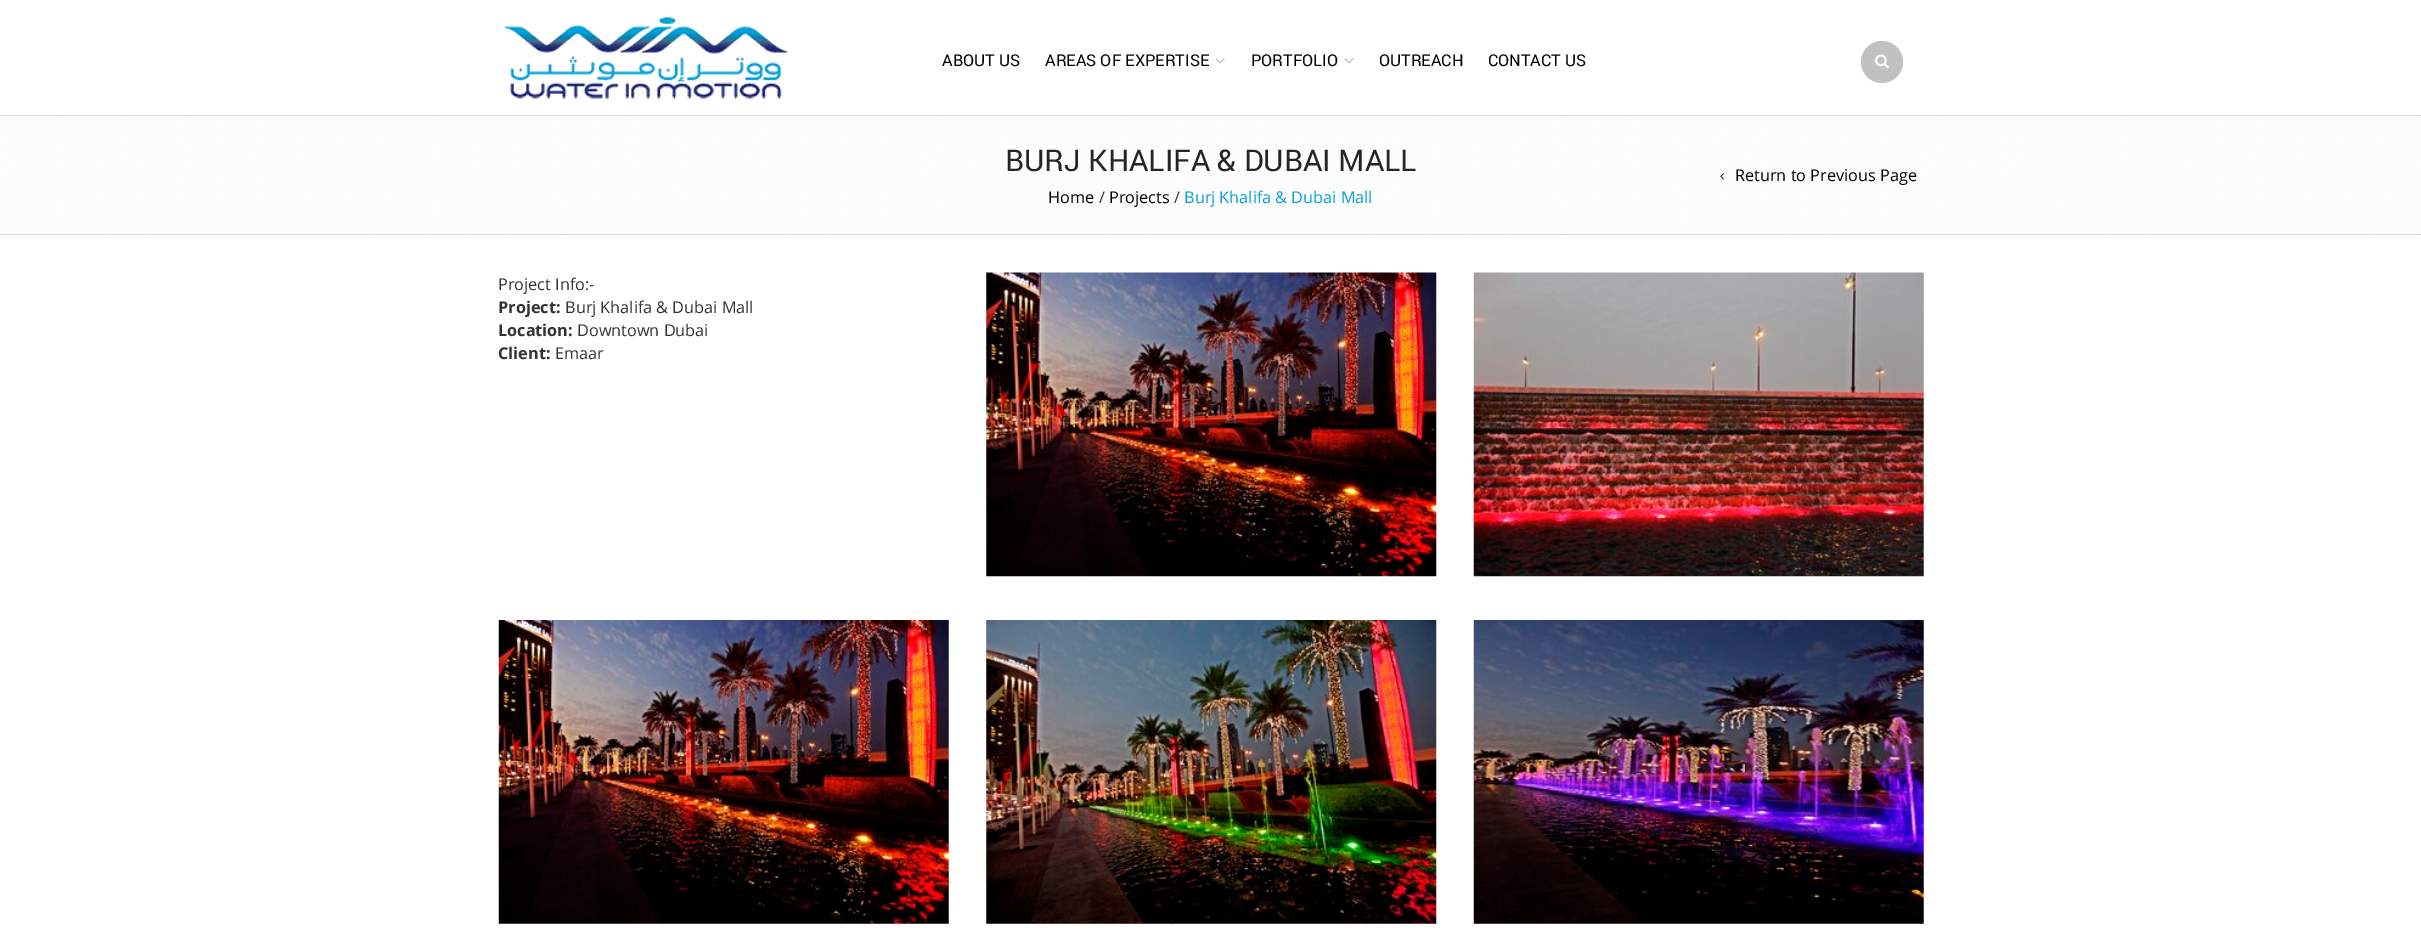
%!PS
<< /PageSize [2421 949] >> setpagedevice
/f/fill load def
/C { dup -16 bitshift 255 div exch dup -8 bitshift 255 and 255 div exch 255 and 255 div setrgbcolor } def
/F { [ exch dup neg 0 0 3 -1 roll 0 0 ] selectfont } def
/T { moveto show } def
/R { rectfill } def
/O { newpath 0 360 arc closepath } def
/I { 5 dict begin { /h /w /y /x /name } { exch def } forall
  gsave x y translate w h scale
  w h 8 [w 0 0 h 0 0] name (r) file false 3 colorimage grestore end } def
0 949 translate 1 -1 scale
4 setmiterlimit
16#FFFFFF C
0 0 2421 949 R
(1.rgb) 503 16 285 83 I
/Roboto-Regular 16.25 F
16#000000 C
(ABOUT US) 942 66 T
(AREAS OF EXPERTISE) 1045 66 T
(2.rgb) 1215 58 10 6 I
(PORTFOLIO) 1251 66 T
(3.rgb) 1344 58 10 6 I
(OUTREACH) 1379 66 T
(CONTACT US) 1488 66 T
16#C1C1C1 C
1882 62 21 O f
(4.rgb) 1875 54 14 15 I
(5.rgb) 0 116 2421 118 I
16#DDDDDD C
0 115 2421 1 R
0 234 2421 1 R
/Roboto-Regular 30 F
16#252525 C
(BURJ KHALIFA & DUBAI MALL) 1005 171 T
(6.rgb) 1720 173 4 7 I
/OpenSans-Regular 16.25 F
16#000000 C
(Return to Previous Page) 1735 181 T
(Home) 1048 203 T
16#333333 C
(/) 1099 203 T
16#000000 C
(Projects) 1109 203 T
16#333333 C
(/) 1174 203 T
16#03A2DA C
(Burj Khalifa & Dubai Mall) 1184 203 T
16#333333 C
(Project Info:-) 498 290 T
/OpenSans-Bold 16.25 F
(Project:) 498 313 T
/OpenSans-Regular 16.25 F
(Burj Khalifa & Dubai Mall) 565 313 T
/OpenSans-Bold 16.25 F
(Location:) 498 336 T
/OpenSans-Regular 16.25 F
(Downtown Dubai) 577 336 T
/OpenSans-Bold 16.25 F
(Client:) 498 359 T
/OpenSans-Regular 16.25 F
(Emaar) 555 359 T
(7.rgb) 986 272 451 305 I
(8.rgb) 1473 272 451 305 I
(9.rgb) 498 620 451 304 I
(10.rgb) 986 620 451 304 I
(11.rgb) 1473 620 451 304 I
showpage
